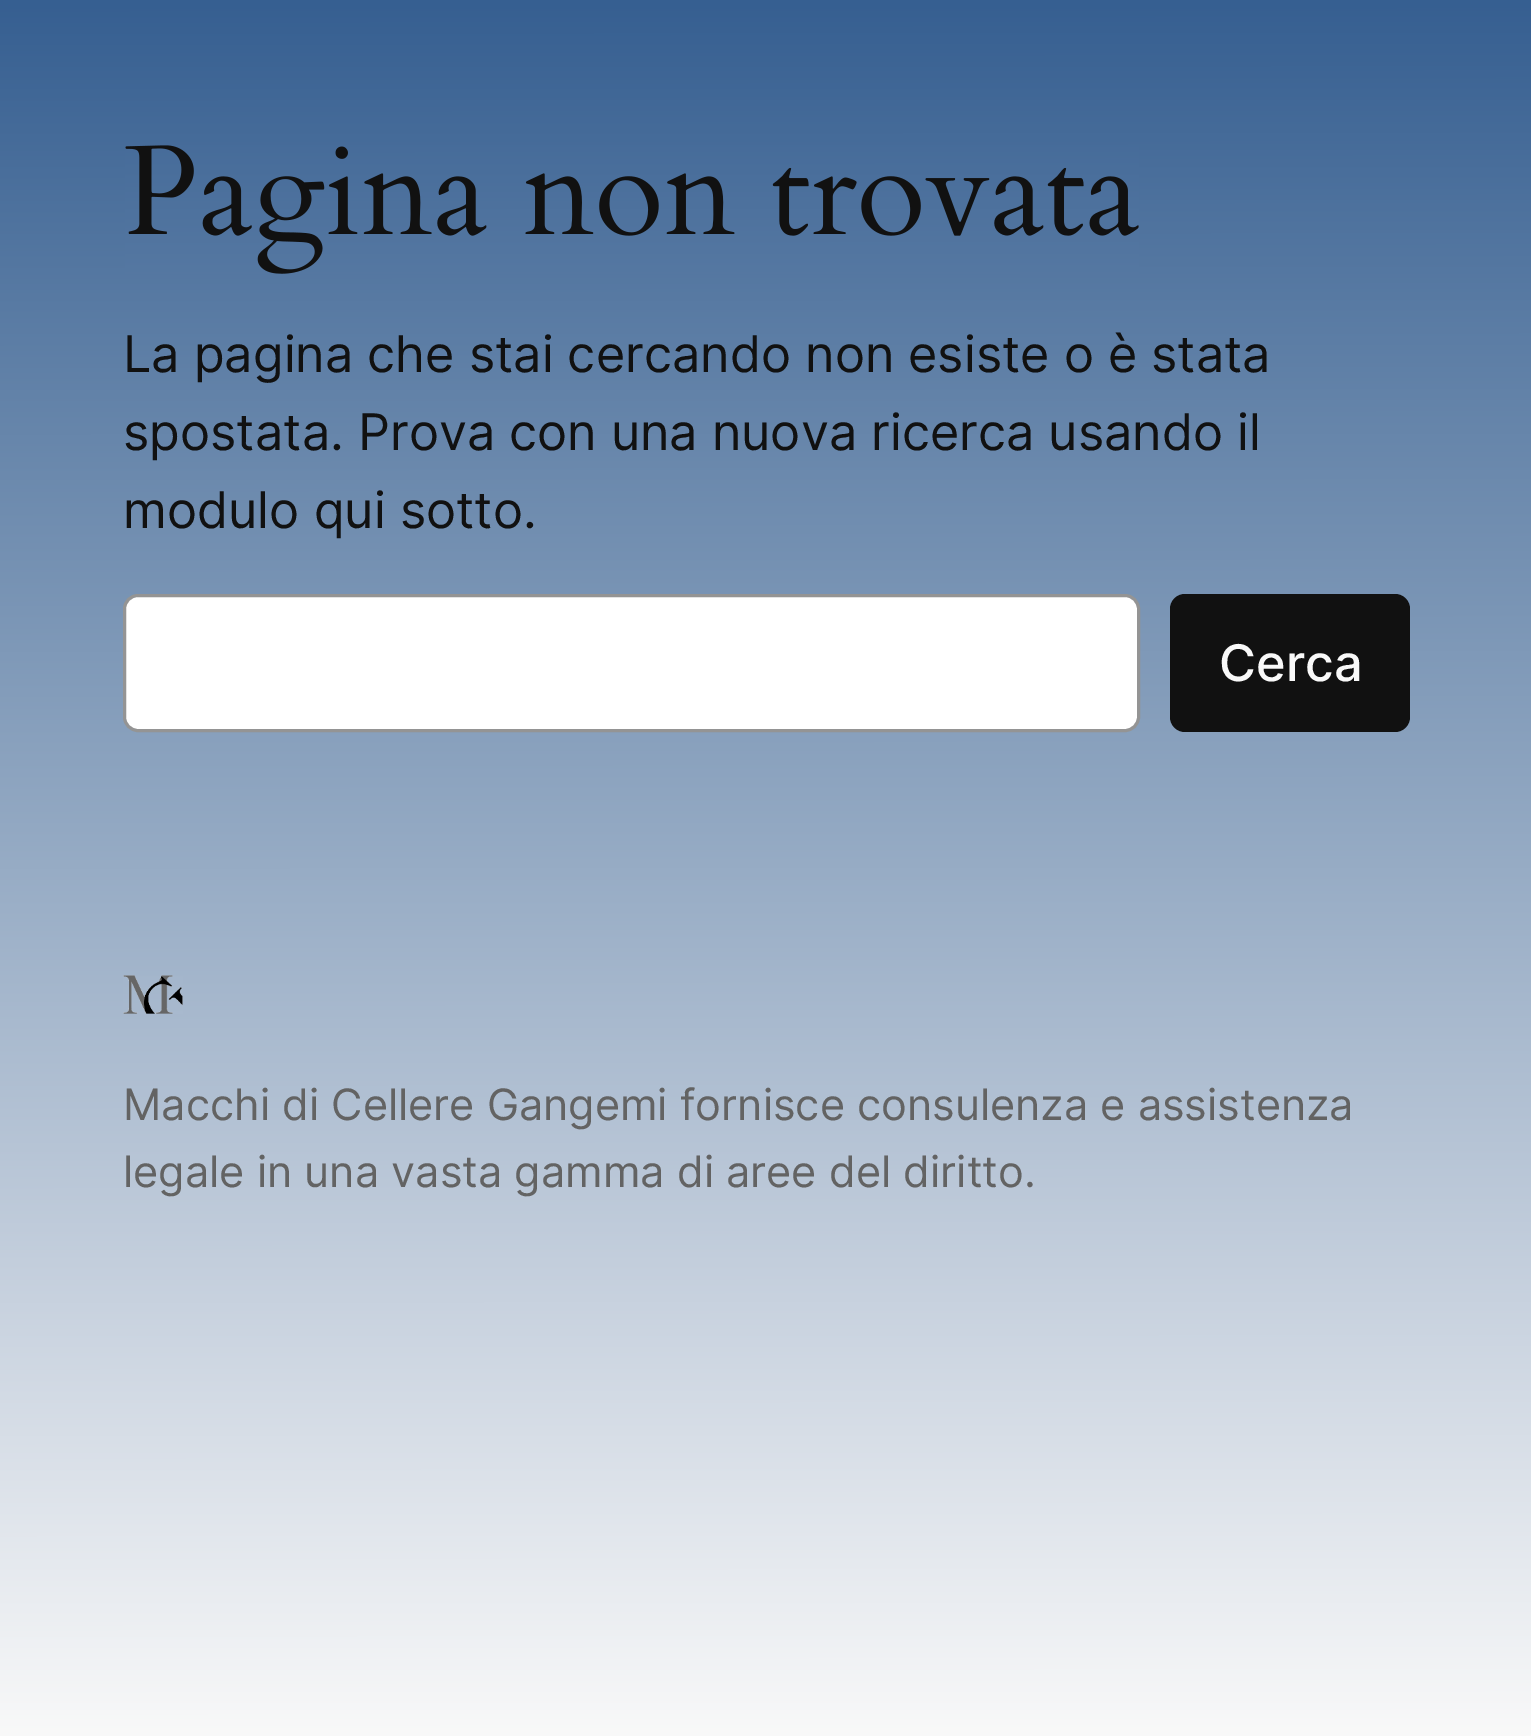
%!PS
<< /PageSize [1531 1736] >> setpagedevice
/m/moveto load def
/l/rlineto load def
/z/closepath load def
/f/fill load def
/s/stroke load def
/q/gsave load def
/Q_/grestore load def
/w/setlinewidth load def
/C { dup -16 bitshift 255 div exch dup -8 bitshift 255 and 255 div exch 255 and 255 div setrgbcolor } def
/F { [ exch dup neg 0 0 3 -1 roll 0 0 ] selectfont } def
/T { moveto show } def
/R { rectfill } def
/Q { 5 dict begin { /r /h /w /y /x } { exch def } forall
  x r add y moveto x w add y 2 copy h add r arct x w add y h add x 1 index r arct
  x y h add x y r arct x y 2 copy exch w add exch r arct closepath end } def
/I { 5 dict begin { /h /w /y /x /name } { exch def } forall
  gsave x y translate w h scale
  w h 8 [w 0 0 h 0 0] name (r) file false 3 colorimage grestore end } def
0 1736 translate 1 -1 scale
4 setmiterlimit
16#FFFFFF C
0 0 1531 1736 R
q 0 0 m 1531 0 l 0 1736 l -1531 0 l z clip newpath
<< /ShadingType 2 /ColorSpace /DeviceRGB /Coords [766 0 767 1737] /Extend [true true] /Function << /FunctionType 2 /Domain [0 1] /C0 [.212 .373 .569] /C1 [.976 .976 .976] /N 1 >> >> shfill Q_
(1.rgb) 125 145 1014 129 I
/Inter-Regular 50.4 F
16#111111 C
123 372 m -.25 0 32 (La pagina che stai cercando non esiste o è stata) widthshow
123 450 m -.25 0 32 (spostata. Prova con una nuova ricerca usando il) widthshow
(modulo qui sotto.) 123 528 T
16#FFFFFF C
124.5 595.5 1014 135 13.5 Q q f Q_
16#949494 C
3 w
s
16#111111 C
1170 594 240 138 15 Q f
/Inter-Medium 50.4 F
16#F9F9F9 C
(Cerca) 1219 681 T
(2.rgb) 123 975 60 39 I
/Inter-Regular 43.2 F
16#636363 C
(Macchi di Cellere Gangemi fornisce consulenza e assistenza) 123 1120 T
(legale in una vasta gamma di aree del diritto.) 123 1187 T
showpage
